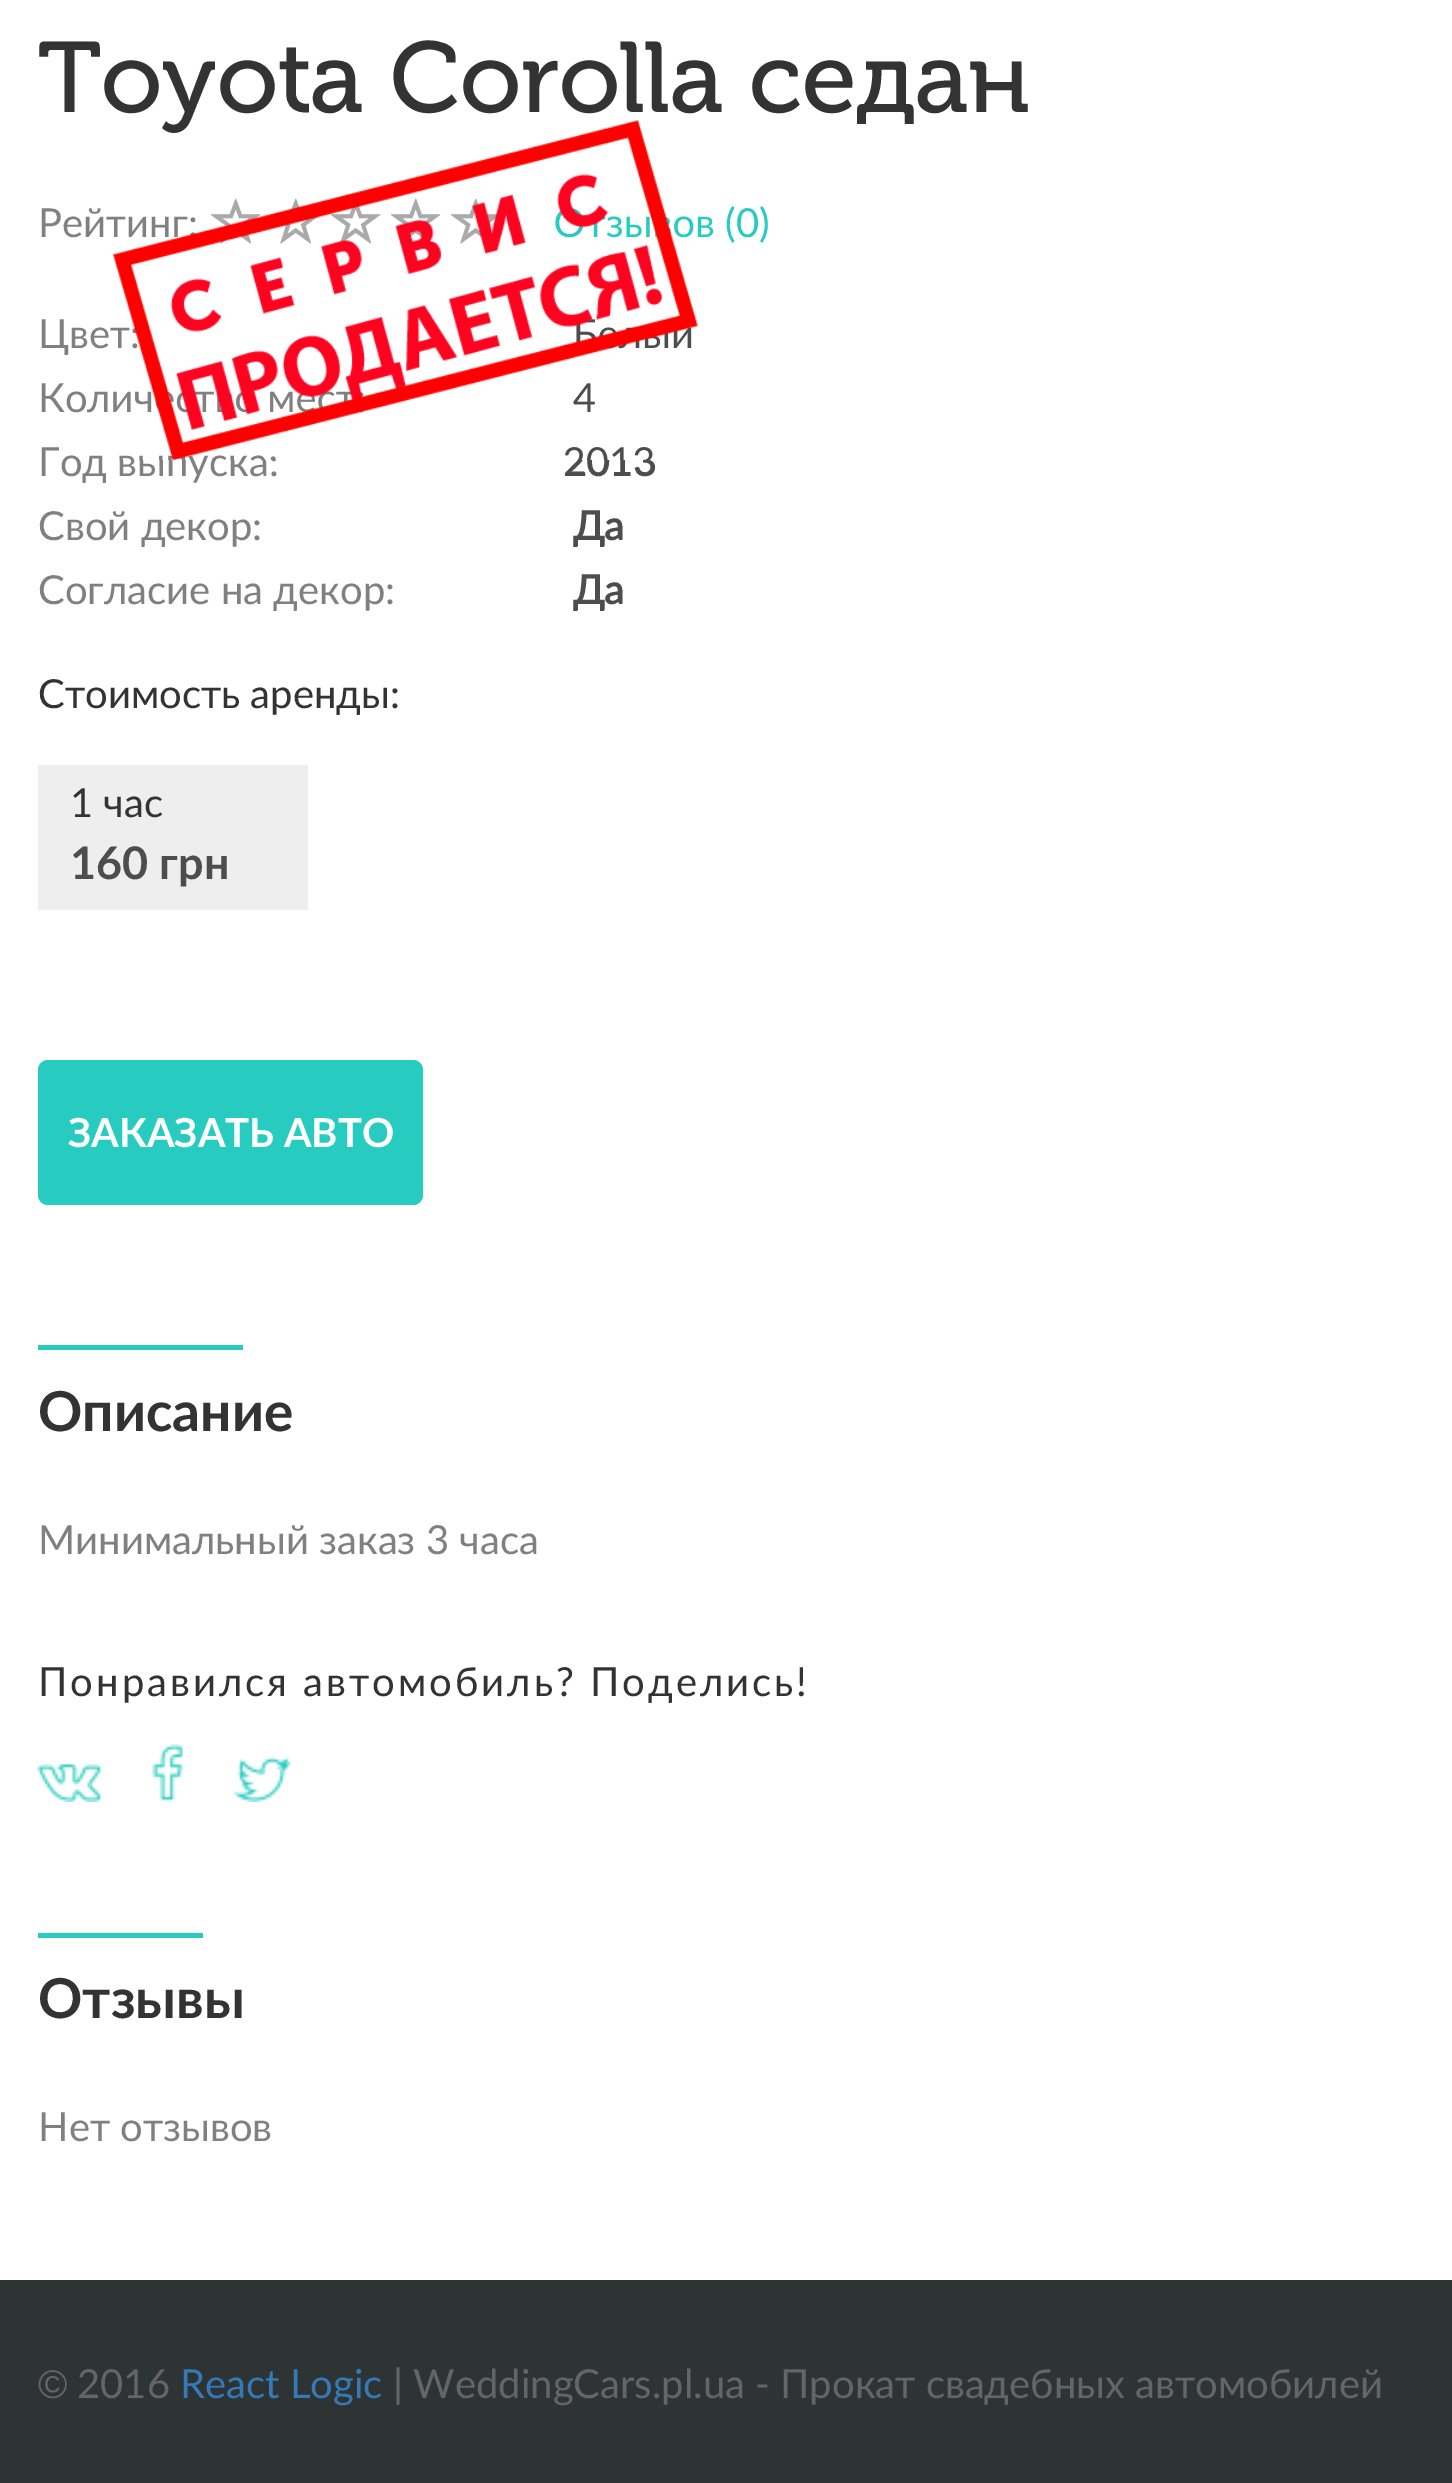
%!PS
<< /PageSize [1452 2483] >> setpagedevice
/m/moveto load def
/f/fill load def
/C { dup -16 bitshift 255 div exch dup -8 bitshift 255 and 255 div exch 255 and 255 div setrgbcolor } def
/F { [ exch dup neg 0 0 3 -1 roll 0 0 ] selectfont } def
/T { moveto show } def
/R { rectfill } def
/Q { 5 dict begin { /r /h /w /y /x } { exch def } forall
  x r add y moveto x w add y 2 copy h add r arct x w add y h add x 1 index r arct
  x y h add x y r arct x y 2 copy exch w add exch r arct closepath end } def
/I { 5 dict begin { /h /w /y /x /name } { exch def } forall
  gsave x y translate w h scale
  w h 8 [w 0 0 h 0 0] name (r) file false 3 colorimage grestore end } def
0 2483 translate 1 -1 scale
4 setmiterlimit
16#FFFFFF C
0 0 1452 2483 R
/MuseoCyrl-Regular 100 F
16#333333 C
(Toyota Corolla седан) 38 112 T
/Lato-Regular 40 F
16#808080 C
(Рейтинг:) 38 237 T
(1.rgb) 210 198 51 46 I
(1.rgb) 270 198 51 46 I
(2.rgb) 330 205 51 39 I
(1.rgb) 390 198 51 46 I
(3.rgb) 450 198 48 46 I
16#27CBC0 C
(зывов \(0\)) 606 237 T
16#808080 C
(Цвет:) 38 348 T
(Колич) 38 412 T
(т) 194 412 T
(м) 267 412 T
/Lato-Bold 40 F
16#4D4D4D C
(4) 573 412 T
/Lato-Regular 40 F
16#808080 C
(Год выпуска:) 38 476 T
/Lato-Bold 40 F
16#4D4D4D C
(2013) 563 476 T
/Lato-Regular 40 F
16#808080 C
(Cвой декор:) 38 540 T
/Lato-Bold 40 F
16#4D4D4D C
(Да) 573 540 T
/Lato-Regular 40 F
16#808080 C
(Согласие на декор:) 38 604 T
/Lato-Bold 40 F
16#4D4D4D C
(Да) 573 604 T
/Lato-Regular 40 F
16#333333 C
(Стоимость аренды:) 38 708 T
16#EEEEEE C
38 765 270 145 R
16#333333 C
(1 час) 70 817 T
/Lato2-Bold 45 F
16#4D4D4D C
(160 грн) 70 879 T
16#27CBC0 C
38 1060 385 145 10 Q f
/Lato2-Bold 40 F
16#FFFFFF C
(ЗАКАЗАТЬ АВТО) 68 1147 T
16#27CBC0 C
38 1345 205 5 R
/Lato2-Bold 55 F
16#333333 C
(Описание) 38 1431 T
/Lato-Regular 40 F
16#808080 C
(Минимальный заказ 3 часа) 38 1554 T
16#333333 C
38 1696 m 3 0 (Понравился автомобиль? Поделись!) ashow
(4.rgb) 37 1764 65 38 I
(5.rgb) 152 1744 31 58 I
(6.rgb) 232 1757 60 45 I
16#27CBC0 C
38 1933 165 5 R
/Lato2-Bold 55 F
16#333333 C
(Отзывы) 38 2018 T
/Lato-Regular 40 F
16#808080 C
(Нет отзывов) 38 2141 T
(7.rgb) 113 120 585 340 I
16#2E3333 C
0 2280 1452 203 R
/LiberationSans-Regular 40 F
16#646565 C
(©) 38 2398 T
/Lato-Regular 40 F
(2016) 77 2398 T
16#337AB7 C
(React Logic) 180 2398 T
16#646565 C
(| WeddingCars.pl.ua - Прокат свадебных автомобилей) 393 2398 T
showpage
